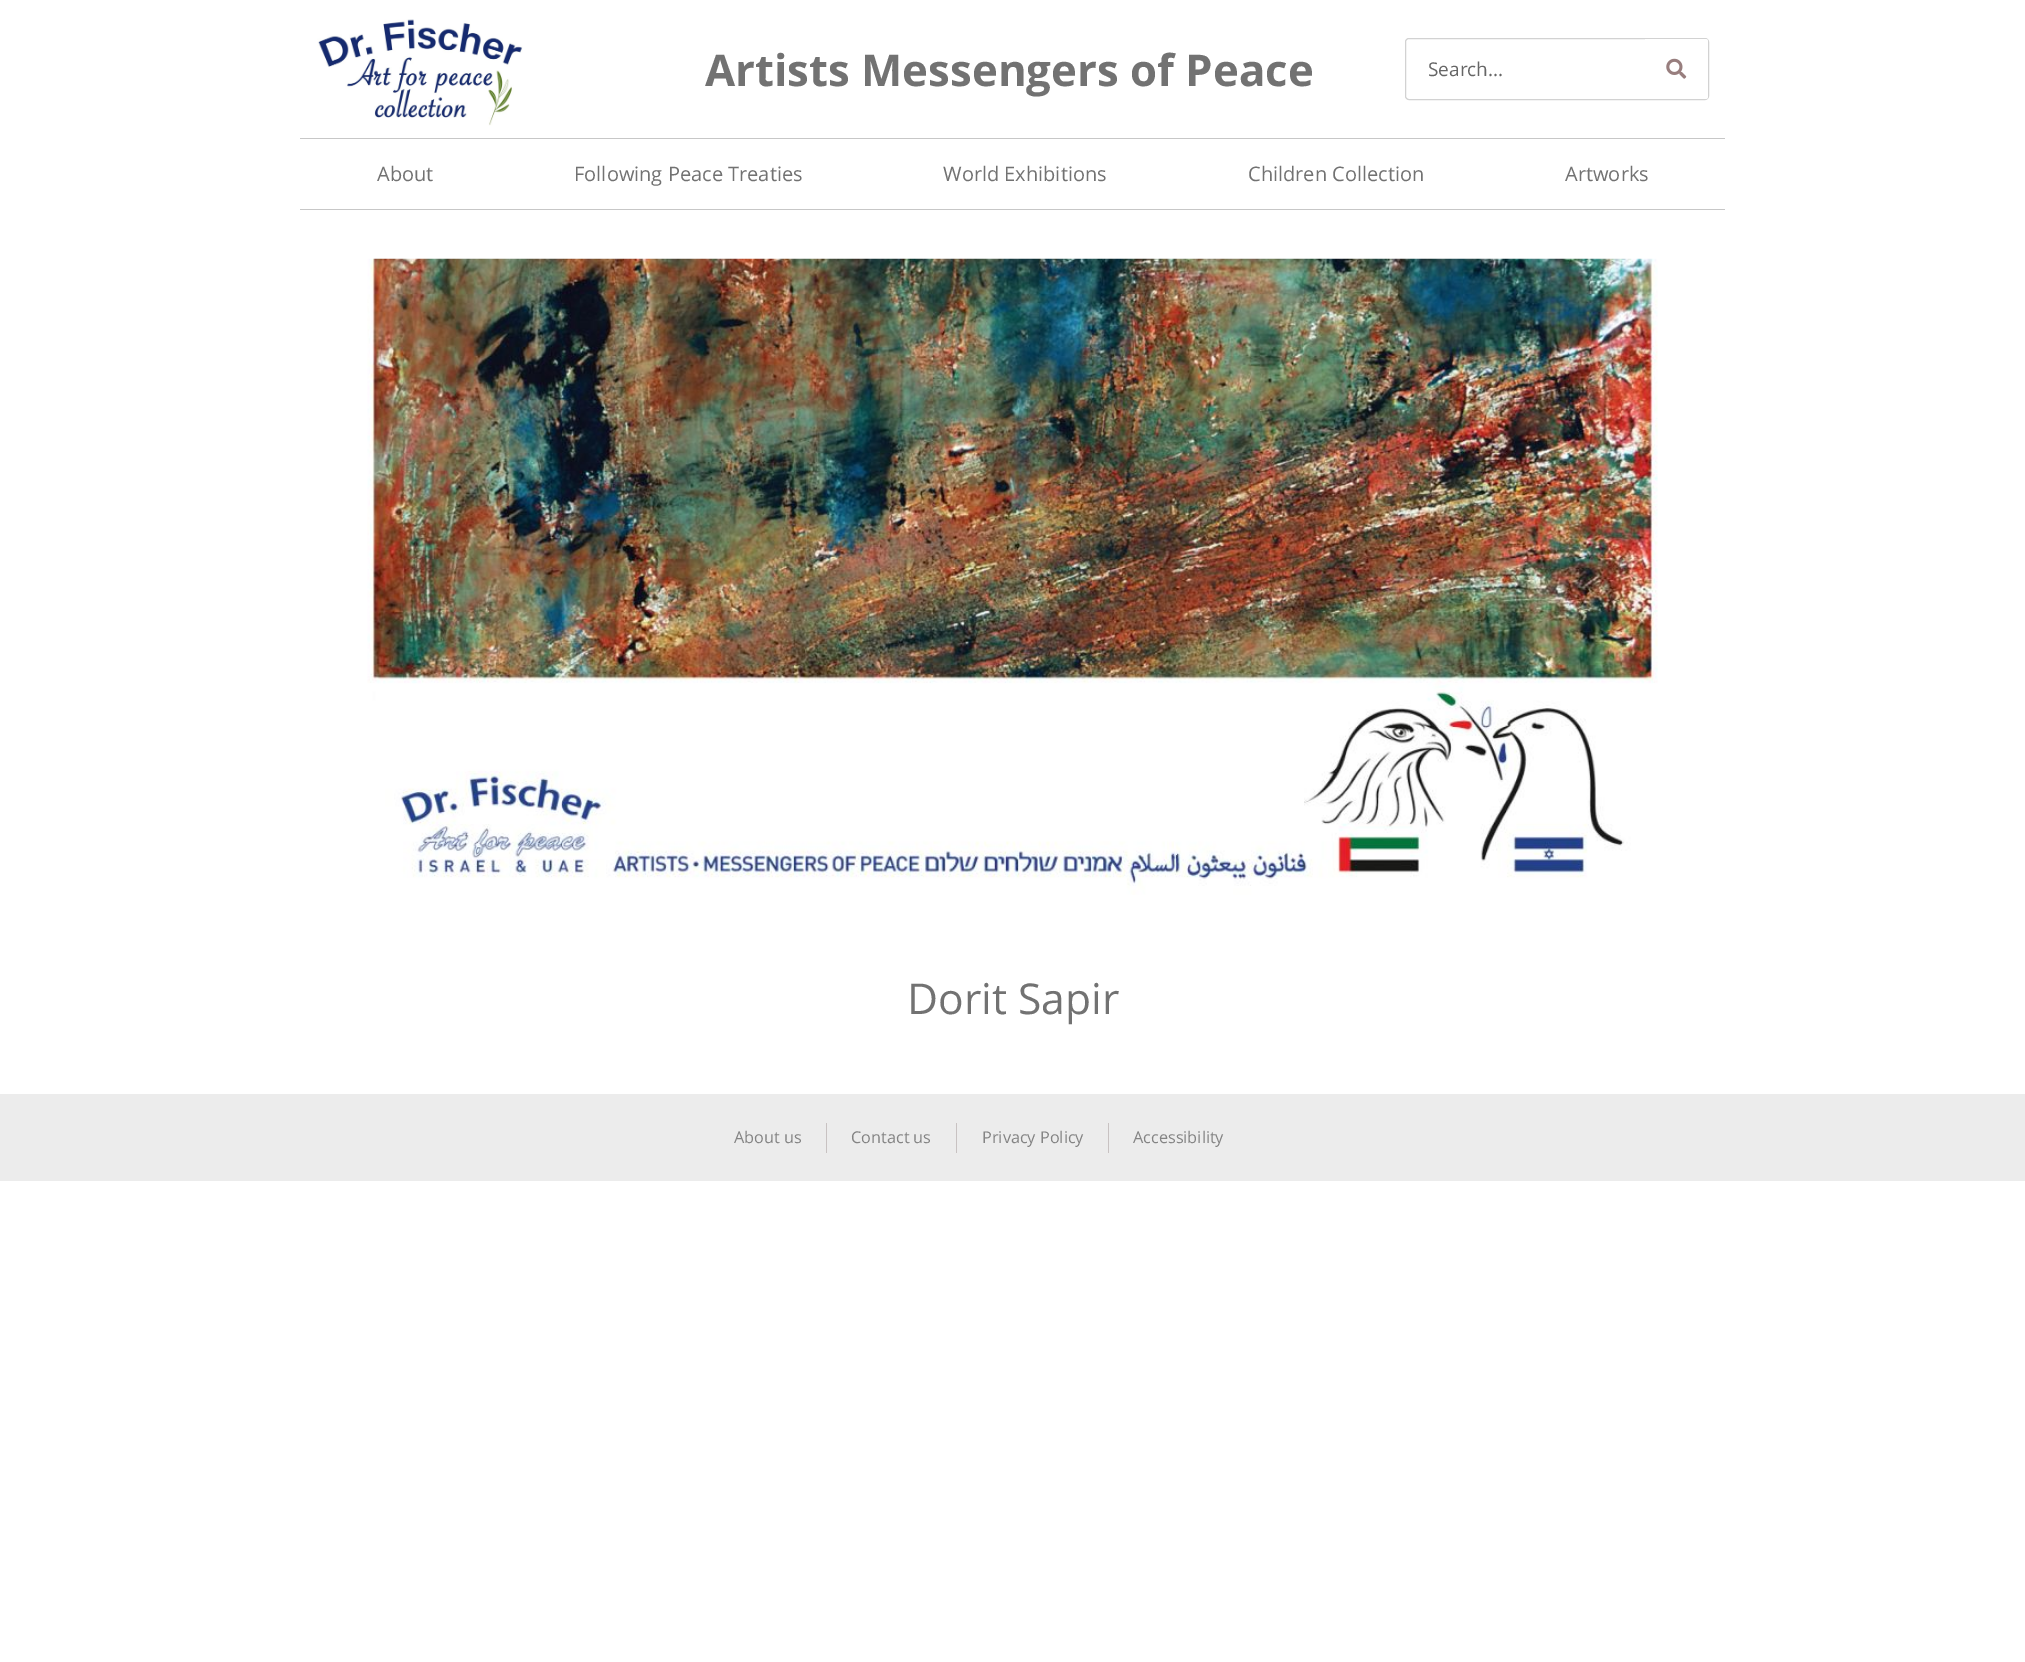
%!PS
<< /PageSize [2025 1662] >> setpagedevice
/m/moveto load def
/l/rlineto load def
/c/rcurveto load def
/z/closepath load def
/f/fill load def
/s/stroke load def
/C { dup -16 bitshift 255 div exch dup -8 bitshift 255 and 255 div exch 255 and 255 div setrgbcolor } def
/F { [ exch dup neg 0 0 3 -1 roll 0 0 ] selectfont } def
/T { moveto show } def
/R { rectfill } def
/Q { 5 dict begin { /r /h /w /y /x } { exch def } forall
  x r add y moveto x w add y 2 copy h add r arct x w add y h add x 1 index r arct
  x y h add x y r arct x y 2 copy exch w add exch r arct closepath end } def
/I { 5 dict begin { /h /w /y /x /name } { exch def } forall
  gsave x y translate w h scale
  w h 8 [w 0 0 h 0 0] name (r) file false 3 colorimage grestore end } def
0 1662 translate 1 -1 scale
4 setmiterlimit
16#FFFFFF C
0 0 2025 1662 R
(1.rgb) 317 19 206 107 I
/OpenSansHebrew-Bold 43.75 F
16#727272 C
(Artists Messengers of Peace) 705 86 T
16#D2D2D2 C
1405.5 38.5 303 61 3.5 Q s
/OpenSansHebrew-Regular 19 F
16#666666 C
(Search...) 1428 76 T
16#FFFFFF C
1645 39 m 60.5 0 l 1.5 0 2.5 1 2.5 2.5 c 0 55 l 0 1.5 -1 2.5 -2.5 2.5 c -60.5 0 l z f
(2.rgb) 1666 58 21 21 I
16#C7C7C7 C
300 138 1425 1 R
300 209 1425 1 R
/OpenSansHebrew-Regular 20 F
16#727272 C
(About) 377 181 T
(Following Peace Treaties) 574 181 T
(World Exhibitions) 943 181 T
(Children Collection) 1248 181 T
(Artworks) 1565 181 T
(3.rgb) 367 258 1291 637 I
/OpenSansHebrew-Regular 42.5 F
(Dorit Sapir) 907 1014 T
16#ECECEC C
0 1094 2025 87 R
/OpenSansHebrew-Regular 16.25 F
16#848484 C
(About us) 734 1143 T
16#C8C2C2 C
826 1123 1 30 R
16#848484 C
(Contact us) 851 1143 T
16#C8C2C2 C
956 1123 1 30 R
16#848484 C
(Privacy Policy) 982 1143 T
16#C8C2C2 C
1108 1123 1 30 R
16#848484 C
(Accessibility) 1133 1143 T
showpage
